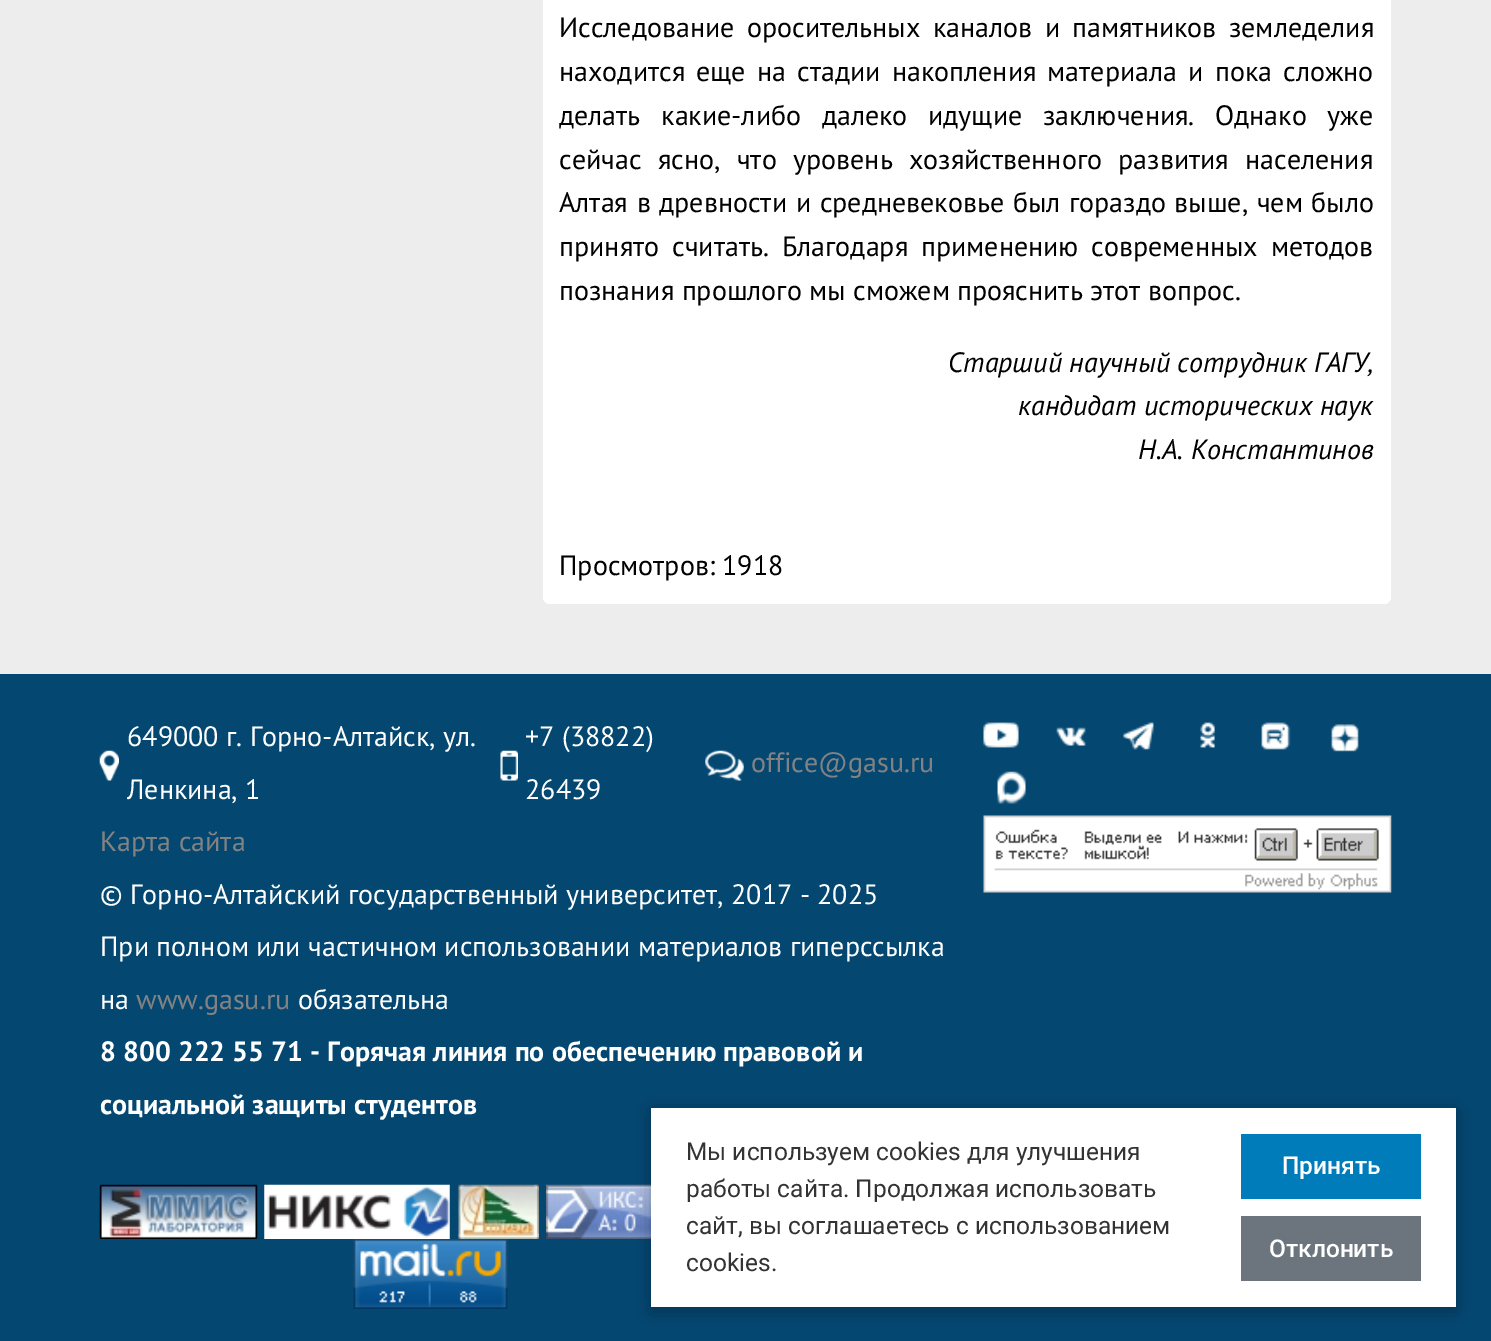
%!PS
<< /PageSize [1491 1341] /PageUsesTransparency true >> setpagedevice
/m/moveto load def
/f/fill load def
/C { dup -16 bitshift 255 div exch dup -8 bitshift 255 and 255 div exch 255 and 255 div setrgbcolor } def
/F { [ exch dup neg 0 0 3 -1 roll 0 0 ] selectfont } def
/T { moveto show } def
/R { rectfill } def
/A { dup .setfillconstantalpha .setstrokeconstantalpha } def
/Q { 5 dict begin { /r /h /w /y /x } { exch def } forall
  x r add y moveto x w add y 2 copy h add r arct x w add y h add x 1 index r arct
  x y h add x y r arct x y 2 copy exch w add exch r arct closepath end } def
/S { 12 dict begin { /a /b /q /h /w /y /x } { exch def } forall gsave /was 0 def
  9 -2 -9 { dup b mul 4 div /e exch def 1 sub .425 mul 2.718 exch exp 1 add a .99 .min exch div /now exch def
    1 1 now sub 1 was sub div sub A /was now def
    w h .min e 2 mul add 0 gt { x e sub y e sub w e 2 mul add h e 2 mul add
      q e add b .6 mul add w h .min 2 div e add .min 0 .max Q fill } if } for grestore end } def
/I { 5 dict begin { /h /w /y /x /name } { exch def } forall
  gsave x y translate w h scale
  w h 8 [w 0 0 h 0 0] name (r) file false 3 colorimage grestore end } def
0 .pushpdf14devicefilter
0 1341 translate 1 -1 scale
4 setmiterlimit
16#EDEDED C
0 0 1491 1341 R
16#044872 C
0 674 1491 667 R
(1.rgb) 99 750 20 31 I
/PTSans-Regular 28 F
16#FFFFFF C
(649000 г. Горно-Алтайск, ул.) 127 746 T
(Ленкина, 1) 127 799 T
(2.rgb) 500 750 18 31 I
(+7 \(38822\)) 525 746 T
(26439) 525 799 T
(3.rgb) 705 750 39 31 I
16#828282 C
(office@gasu.ru) 751 772 T
(Карта сайта) 100 851 T
16#FFFFFF C
(© Горно-Алтайский государственный университет, 2017 - 2025) 100 904 T
(При полном или частичном использовании материалов гиперссылка) 100 956 T
(на) 100 1009 T
16#828282 C
(www.gasu.ru) 136 1009 T
16#FFFFFF C
(обязательна) 298 1009 T
/PTSans-Bold 28 F
(8 800 222 55 71 - Горячая линия по обеспечению правовой и) 100 1061 T
(социальной защиты студентов) 100 1114 T
(4.rgb) 99 1184 159 55 I
(5.rgb) 264 1184 186 55 I
(6.rgb) 458 1184 81 55 I
(7.rgb) 546 1184 105 55 I
(8.rgb) 353 1239 155 70 I
(9.rgb) 983 722 36 26 I
(10.rgb) 1056 727 30 19 I
(11.rgb) 1123 722 31 28 I
(12.rgb) 1200 722 15 26 I
(13.rgb) 1261 722 30 28 I
(14.rgb) 1331 724 28 28 I
(15.rgb) 997 771 29 33 I
(16.rgb) 983 815 409 78 I
543 -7 848 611 7 Q f
/PTSans-Regular 28 F
16#000000 C
559 37 m 5 0 32 (Исследование оросительных каналов и памятников земледелия) widthshow
559 81 m 3.75 0 32 (находится еще на стадии накопления материала и пока сложно) widthshow
559 125 m 13.25 0 32 (делать какие-либо далеко идущие заключения. Однако уже) widthshow
559 169 m 9 0 32 (сейчас ясно, что уровень хозяйственного развития населения) widthshow
559 212 m 1.25 0 32 (Алтая в древности и средневековье был гораздо выше, чем было) widthshow
559 256 m 5.5 0 32 (принято считать. Благодаря применению современных методов) widthshow
(познания прошлого мы сможем прояснить этот вопрос.) 559 300 T
/PTSans-Italic 28 F
(Старший научный сотрудник ГАГУ,) 948 372 T
(кандидат исторических наук) 1018 415 T
(Н.А. Константинов) 1138 459 T
/PTSans-Regular 28 F
(Просмотров: 1918) 559 575 T
651 1111 805 200 0 9 .3 S
16#FFFFFF C
651 1108 805 199 R
/Roboto-Regular 24.5 F
16#333333 C
(Мы используем cookies для улучшения) 686 1160 T
(работы сайта. Продолжая использовать) 686 1197 T
(сайт, вы соглашаетесь с использованием) 686 1234 T
(cookies.) 686 1271 T
16#007CBA C
1241 1134 180 65 R
/Roboto-Medium 24.5 F
16#FFFFFF C
(Принять) 1282 1174 T
16#6C757D C
1241 1216 180 65 R
16#FFFFFF C
(Отклонить) 1269 1257 T
.poppdf14devicefilter showpage
